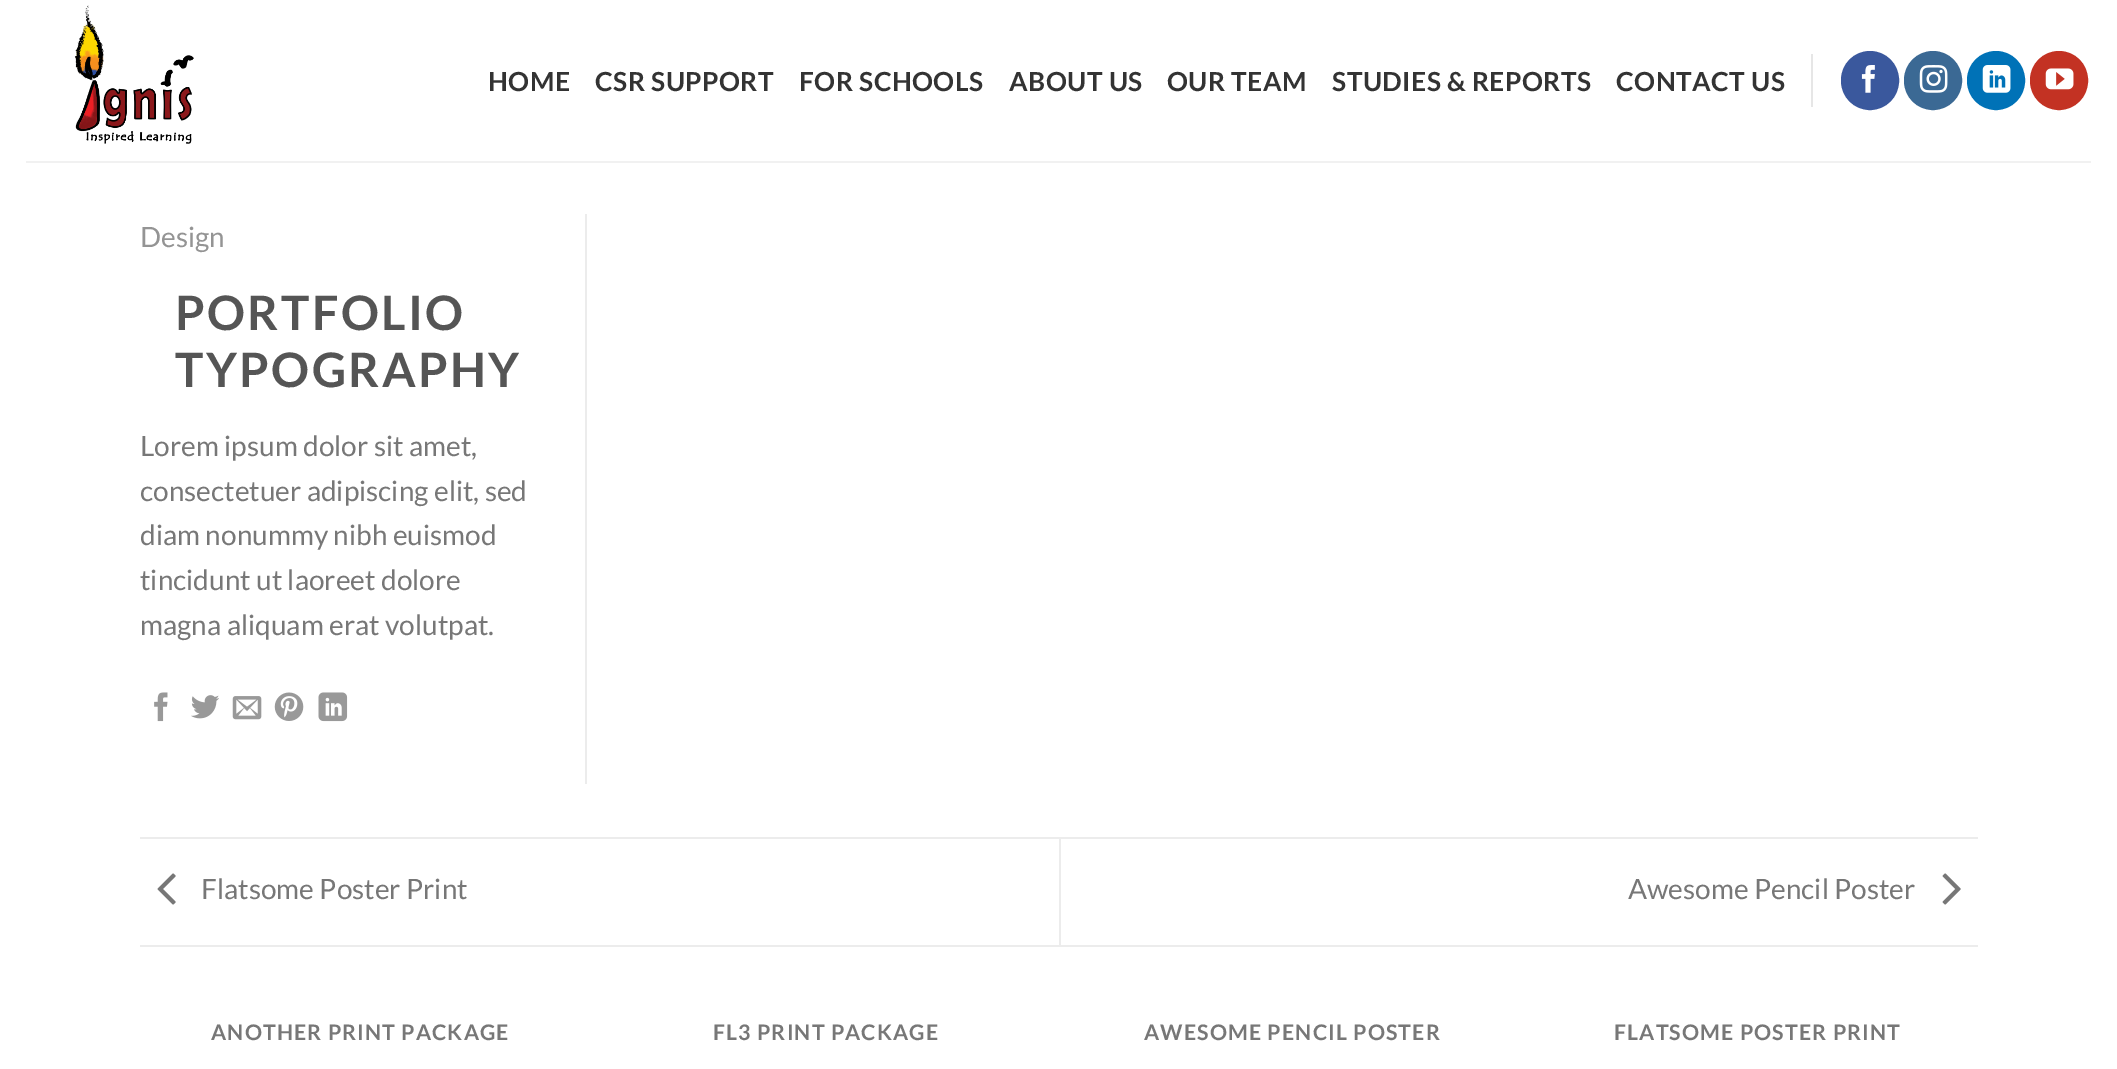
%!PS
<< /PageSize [2117 1069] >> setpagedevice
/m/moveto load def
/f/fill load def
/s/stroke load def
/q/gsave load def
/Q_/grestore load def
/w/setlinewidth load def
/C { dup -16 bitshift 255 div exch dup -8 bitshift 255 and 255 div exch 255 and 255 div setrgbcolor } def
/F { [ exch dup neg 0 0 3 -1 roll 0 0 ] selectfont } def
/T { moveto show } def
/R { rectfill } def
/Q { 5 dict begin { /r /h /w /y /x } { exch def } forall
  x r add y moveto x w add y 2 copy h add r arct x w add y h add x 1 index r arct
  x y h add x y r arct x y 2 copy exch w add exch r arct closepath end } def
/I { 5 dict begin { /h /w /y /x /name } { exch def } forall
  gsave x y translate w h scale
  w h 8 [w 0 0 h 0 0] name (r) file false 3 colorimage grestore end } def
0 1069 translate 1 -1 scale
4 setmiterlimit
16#FFFFFF C
0 0 2117 1069 R
(1.rgb) 74 5 120 139 I
/Lato-Bold 26.25 F
16#333333 C
488 91 m .5 0 (HOME) ashow
595 91 m .5 0 (CSR SUPPORT) ashow
799 91 m .5 0 (FOR SCHOOLS) ashow
1009 91 m .5 0 (ABOUT US) ashow
1167 91 m .5 0 (OUR TEAM) ashow
1332 91 m .5 0 (STUDIES & REPORTS) ashow
1616 91 m .5 0 (CONTACT US) ashow
16#E6E6E6 C
1811 54 2 53 R
16#3A589D C
1842 52 56 57 28 Q q f Q_
2 w
s
(2.rgb) 1861 65 14 28 I
16#3B6994 C
1905 52 56 57 28 Q q f Q_
s
(3.rgb) 1919 65 29 28 I
16#0072B7 C
1968 52 56 57 28 Q q f Q_
s
(4.rgb) 1982 65 29 28 I
16#C33223 C
2031 52 56 57 28 Q q f Q_
s
(5.rgb) 2045 68 29 22 I
16#F1F1F1 C
26 161 2065 2 R
16#ECECEC C
585 214 2 570 R
/Lato-Regular 28 F
16#949494 C
(Design) 140 247 T
/Lato-Bold 47.5 F
16#555555 C
175 330 m 2.4 0 (PORTFOLIO) ashow
175 387 m 2.4 0 (TYPOGRAPHY) ashow
/Lato-Regular 28 F
16#777777 C
(Lorem ipsum dolor sit amet,) 140 456 T
(consectetuer adipiscing elit, sed) 140 501 T
(diam nonummy nibh euismod) 140 545 T
(tincidunt ut laoreet dolore) 140 590 T
(magna aliquam erat volutpat.) 140 635 T
(6.rgb) 154 692 14 30 I
(7.rgb) 191 695 28 24 I
(8.rgb) 232 696 30 24 I
(9.rgb) 274 692 30 29 I
(10.rgb) 318 692 30 30 I
16#ECECEC C
140 837 1838 2 R
140 945 1838 2 R
(11.rgb) 157 873 19 32 I
16#777777 C
(Flatsome Poster Print) 201 899 T
16#ECECEC C
1059 838 2 107 R
16#777777 C
(Awesome Pencil Poster) 1628 899 T
(12.rgb) 1942 873 19 32 I
/Lato-Bold 21.4 F
211 1040 m 1.1 0 (ANOTHER PRINT PACKAGE) ashow
713 1040 m 1.1 0 (FL3 PRINT PACKAGE) ashow
1144 1040 m 1.1 0 (AWESOME PENCIL POSTER) ashow
1614 1040 m 1.1 0 (FLATSOME POSTER PRINT) ashow
showpage
